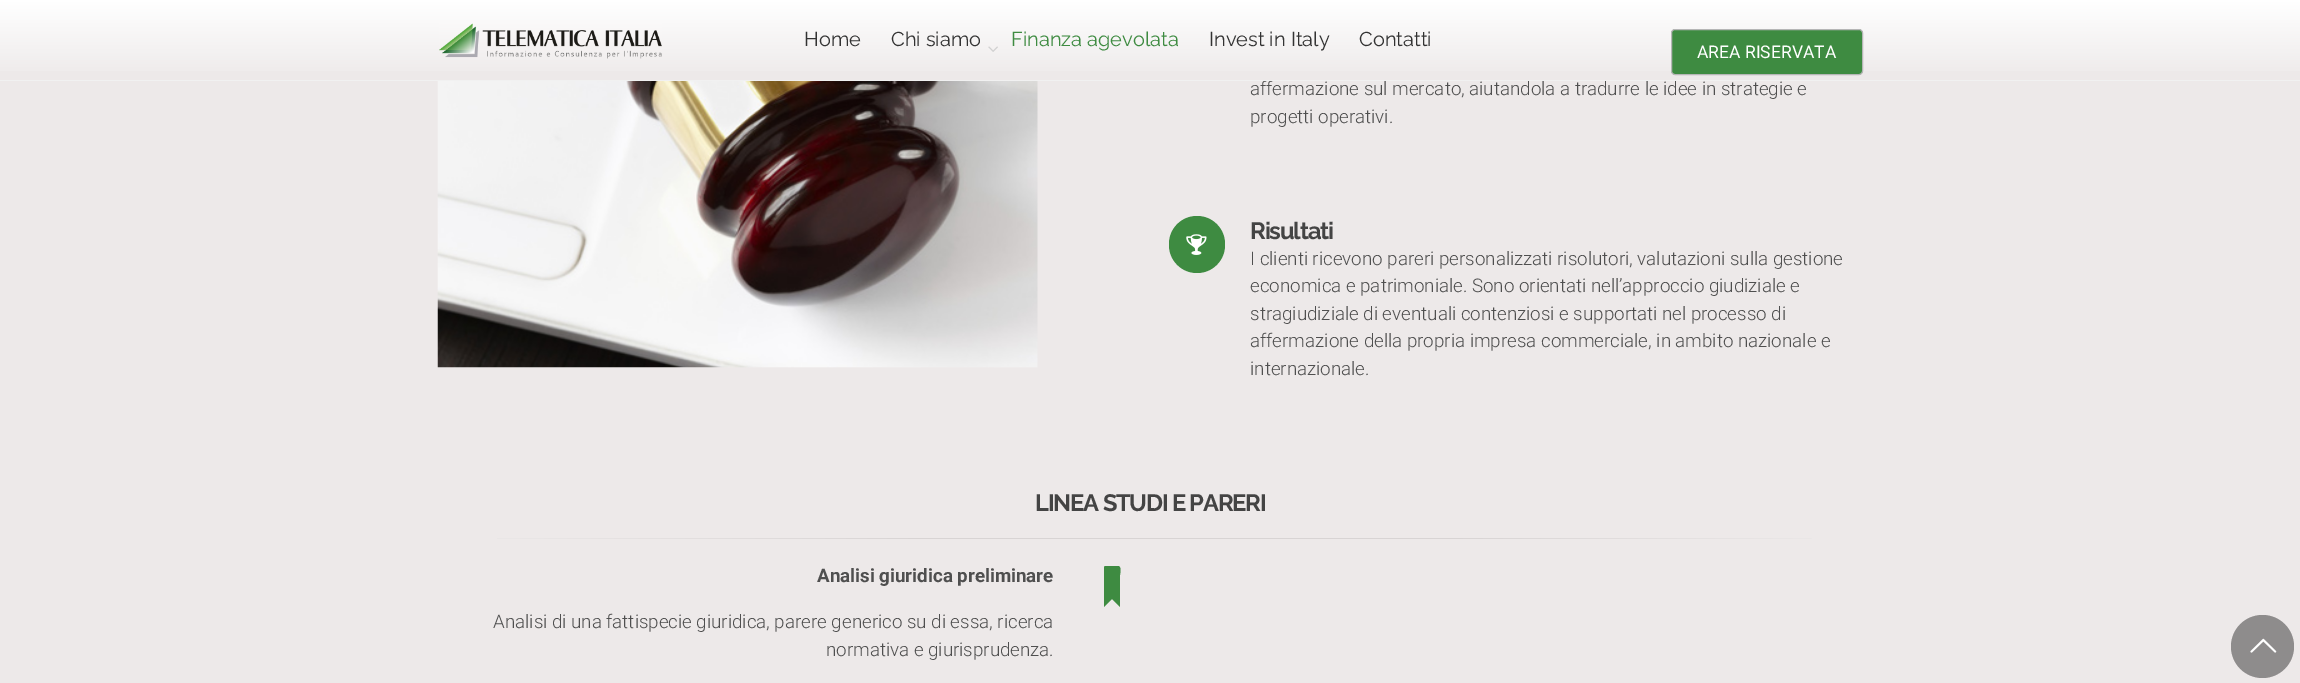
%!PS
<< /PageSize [2300 683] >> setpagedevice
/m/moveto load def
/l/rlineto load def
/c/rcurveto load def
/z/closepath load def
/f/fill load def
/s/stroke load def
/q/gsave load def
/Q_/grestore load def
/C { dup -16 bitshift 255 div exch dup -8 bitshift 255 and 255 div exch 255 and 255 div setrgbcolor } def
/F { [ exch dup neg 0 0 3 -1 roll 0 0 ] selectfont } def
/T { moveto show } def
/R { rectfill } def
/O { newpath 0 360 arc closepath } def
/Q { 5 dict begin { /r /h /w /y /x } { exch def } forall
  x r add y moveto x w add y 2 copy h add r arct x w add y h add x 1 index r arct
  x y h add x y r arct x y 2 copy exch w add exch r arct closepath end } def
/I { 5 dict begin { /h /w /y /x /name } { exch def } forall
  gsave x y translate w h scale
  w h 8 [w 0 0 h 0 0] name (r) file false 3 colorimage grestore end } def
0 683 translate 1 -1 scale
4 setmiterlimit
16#EDE9E9 C
0 0 2300 683 R
q 0 1 m 2300 0 l 0 70 l -2300 0 l z clip newpath
<< /ShadingType 2 /ColorSpace /DeviceRGB /Coords [1150 1.2 1150 80] /Extend [true true] /Function << /FunctionType 2 /Domain [0 1] /C0 [1 1 1] /C1 [.929 .914 .914] /N 1 >> >> shfill Q_
16#FFFFFF C
0 0 2300 1 R
/Roboto-Light 18.75 F
16#4F4F4F C
(affermazione sul mercato, aiutandola a tradurre le idee in strategie e) 1250 95 T
16#F1F1F1 C
0 80 2300 1 R
(1.rgb) 439 23 223 36 I
/Raleway-Regular 20 F
16#333333 C
(Home) 804 46 T
(Chi siamo) 891 46 T
(2.rgb) 988 46 10 6 I
16#3E8B41 C
(Finanza agevolata) 1011 46 T
16#333333 C
(Invest in Italy) 1209 46 T
(Contatti) 1359 46 T
16#3E8B41 C
1671.5 29.5 191 45 3.5 Q q f Q_
16#B6B6B6 C
s
/Roboto-Regular 17.5 F
16#FFFFFF C
(AREA RISERVATA) 1697 58 T
(3.rgb) 437 81 601 287 I
/Roboto-Light 18.75 F
16#4F4F4F C
(progetti operativi.) 1250 123 T
16#3E8B41 C
1169 216 56 57 28 Q f
(4.rgb) 1186 234 21 21 I
/Raleway-Bold 23.75 F
16#444444 C
1250 239 m -1.2 0 (Risultati) ashow
/Roboto-Light 18.75 F
16#4F4F4F C
(I clienti ricevono pareri personalizzati risolutori, valutazioni sulla gestione) 1250 265 T
(economica e patrimoniale. Sono orientati nell’approccio giudiziale e) 1250 292 T
(stragiudiziale di eventuali contenziosi e supportati nel processo di) 1250 320 T
(affermazione della propria impresa commerciale, in ambito nazionale e) 1250 347 T
(internazionale.) 1250 375 T
/Raleway-Bold 23.75 F
16#444444 C
1035 511 m -1.2 0 (LINEA STUDI E PARERI) ashow
q 497 538 m 1315 0 l 0 1 l -1315 0 l z clip newpath
<< /ShadingType 2 /ColorSpace /DeviceRGB /Coords [438 538 1863 538] /Extend [true true] /Function << /FunctionType 3 /Domain [0 1] /Functions [<< /FunctionType 2 /Domain [0 1] /C0 [.929 .914 .914] /C1 [.847 .831 .831] /N 1 >> << /FunctionType 2 /Domain [0 1] /C0 [.847 .831 .831] /C1 [.847 .831 .831] /N 1 >> << /FunctionType 2 /Domain [0 1] /C0 [.847 .831 .831] /C1 [.929 .914 .914] /N 1 >>] /Bounds [.35 .7] /Encode [0 1 0 1 0 1] >> >> shfill Q_
/Roboto-Bold 18.75 F
16#4F4F4F C
(Analisi giuridica preliminare) 817 582 T
/Roboto-Light 18.75 F
(Analisi di una fattispecie giuridica, parere generico su di essa, ricerca) 493 628 T
(normativa e giurisprudenza.) 826 656 T
16#3E8B41 C
1118 566 m 4 0 2 8 2 9 c 0 32 l -8 -8 l -8 8 l 0 -38 l 0 -2 0 -3 2 -3 c z f
16#8E8C8C C
2262.5 646.5 31.5 O f
(5.rgb) 2250 638 27 15 I
showpage
